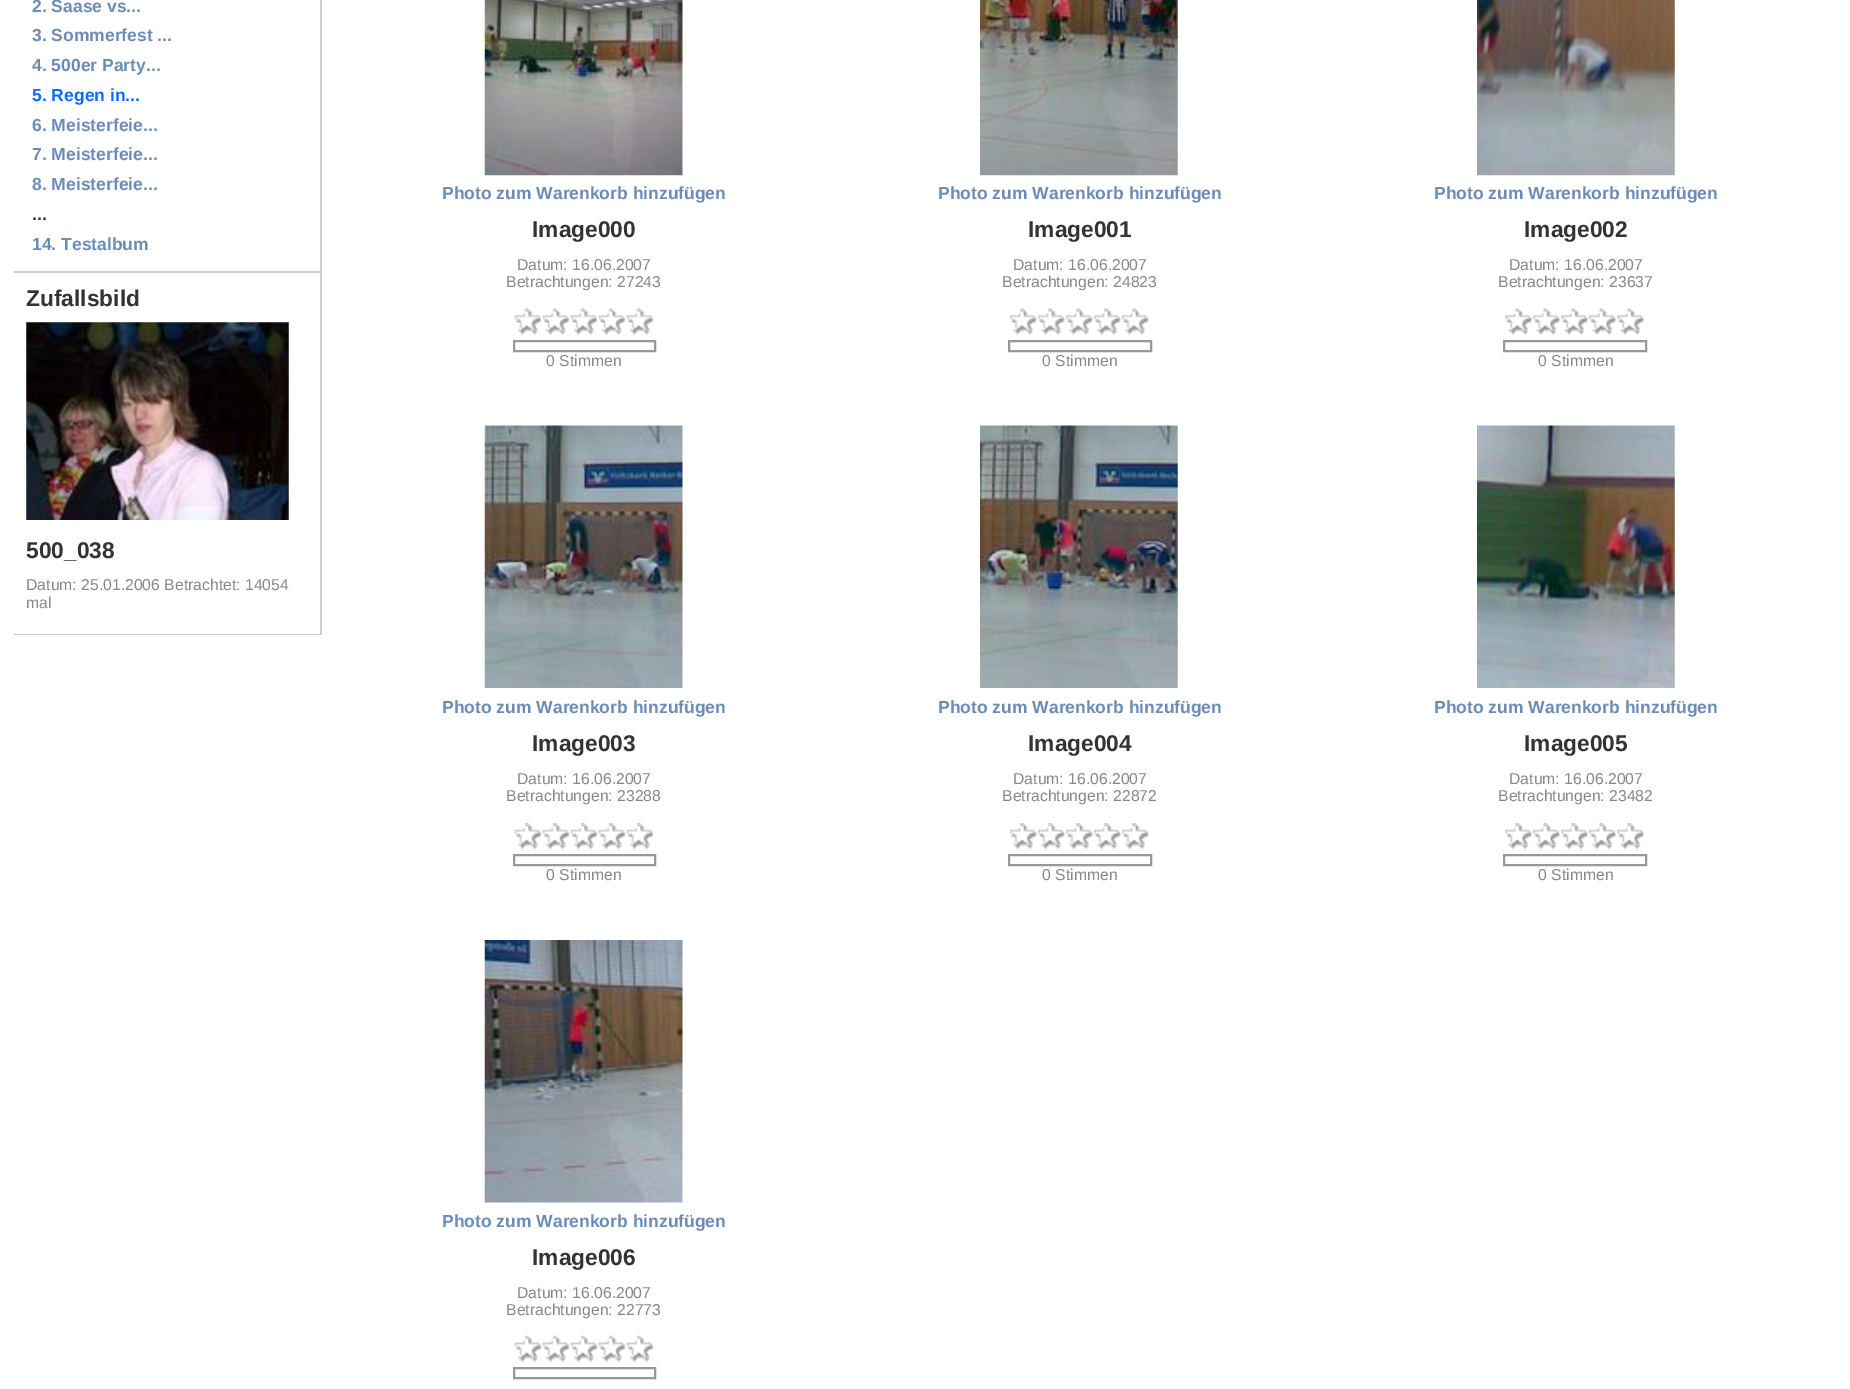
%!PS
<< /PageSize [1850 1389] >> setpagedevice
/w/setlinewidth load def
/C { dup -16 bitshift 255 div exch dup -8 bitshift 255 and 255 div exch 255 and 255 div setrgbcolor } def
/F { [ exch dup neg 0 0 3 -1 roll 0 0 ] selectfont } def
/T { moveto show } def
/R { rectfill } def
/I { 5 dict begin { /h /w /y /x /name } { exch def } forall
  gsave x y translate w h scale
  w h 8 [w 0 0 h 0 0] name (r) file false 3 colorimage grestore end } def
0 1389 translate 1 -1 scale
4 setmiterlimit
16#FFFFFF C
0 0 1850 1389 R
16#CCCCCC C
320 0 2 635 R
14 271 306 2 R
/LiberationSans-Bold 17.5 F
16#6B8CB7 C
(2. Saase vs...) 32 12 T
(3. Sommerfest ...) 32 41 T
(4. 500er Party...) 32 71 T
16#0B6CFF C
(5. Regen in...) 32 101 T
16#6B8CB7 C
(6. Meisterfeie...) 32 131 T
(7. Meisterfeie...) 32 160 T
(8. Meisterfeie...) 32 190 T
16#333333 C
(...) 32 220 T
16#6B8CB7 C
(14. Testalbum) 32 250 T
16#CCCCCC C
14 634 306 1 R
/LiberationSans-Bold 22.75 F
16#333333 C
(Zufallsbild) 26 306 T
(1.rgb) 26 322 263 198 I
(500_038) 26 558 T
/LiberationSans-Regular 15.75 F
16#888888 C
(Datum: 25.01.2006 Betrachtet: 14054) 26 590 T
(mal) 26 608 T
(2.rgb) 484 0 199 176 I
/LiberationSans-Bold 17.5 F
16#6B8CB7 C
(Photo zum Warenkorb hinzufügen) 442 199 T
/LiberationSans-Bold 22.75 F
16#333333 C
(Image000) 532 237 T
/LiberationSans-Regular 15.75 F
16#888888 C
(Datum: 16.06.2007) 517 270 T
(Betrachtungen: 27243) 506 287 T
(3.rgb) 514 308 28 27 I
(4.rgb) 542 308 28 27 I
(3.rgb) 570 308 28 27 I
(3.rgb) 598 308 28 27 I
(3.rgb) 626 308 28 27 I
16#999999 C
2 w
514 341 141 10 rectstroke
16#888888 C
(0 Stimmen) 546 366 T
(5.rgb) 980 0 198 176 I
/LiberationSans-Bold 17.5 F
16#6B8CB7 C
(Photo zum Warenkorb hinzufügen) 938 199 T
/LiberationSans-Bold 22.75 F
16#333333 C
(Image001) 1028 237 T
/LiberationSans-Regular 15.75 F
16#888888 C
(Datum: 16.06.2007) 1013 270 T
(Betrachtungen: 24823) 1002 287 T
(6.rgb) 1010 308 27 27 I
(7.rgb) 1038 308 27 27 I
(8.rgb) 1066 308 27 27 I
(8.rgb) 1094 308 27 27 I
(7.rgb) 1122 308 27 27 I
16#999999 C
1009 341 142 10 rectstroke
16#888888 C
(0 Stimmen) 1042 366 T
(9.rgb) 1477 0 198 176 I
/LiberationSans-Bold 17.5 F
16#6B8CB7 C
(Photo zum Warenkorb hinzufügen) 1434 199 T
/LiberationSans-Bold 22.75 F
16#333333 C
(Image002) 1524 237 T
/LiberationSans-Regular 15.75 F
16#888888 C
(Datum: 16.06.2007) 1509 270 T
(Betrachtungen: 23637) 1498 287 T
(10.rgb) 1505 308 27 27 I
(11.rgb) 1533 308 27 27 I
(12.rgb) 1561 308 27 27 I
(12.rgb) 1589 308 27 27 I
(12.rgb) 1617 308 27 27 I
16#999999 C
1504 341 142 10 rectstroke
16#888888 C
(0 Stimmen) 1538 366 T
(13.rgb) 484 425 199 263 I
/LiberationSans-Bold 17.5 F
16#6B8CB7 C
(Photo zum Warenkorb hinzufügen) 442 713 T
/LiberationSans-Bold 22.75 F
16#333333 C
(Image003) 532 751 T
/LiberationSans-Regular 15.75 F
16#888888 C
(Datum: 16.06.2007) 517 784 T
(Betrachtungen: 23288) 506 801 T
(14.rgb) 514 823 28 27 I
(15.rgb) 542 823 28 27 I
(14.rgb) 570 823 28 27 I
(14.rgb) 598 823 28 27 I
(14.rgb) 626 823 28 27 I
16#999999 C
514 855 141 10 rectstroke
16#888888 C
(0 Stimmen) 546 880 T
(16.rgb) 980 425 198 263 I
/LiberationSans-Bold 17.5 F
16#6B8CB7 C
(Photo zum Warenkorb hinzufügen) 938 713 T
/LiberationSans-Bold 22.75 F
16#333333 C
(Image004) 1028 751 T
/LiberationSans-Regular 15.75 F
16#888888 C
(Datum: 16.06.2007) 1013 784 T
(Betrachtungen: 22872) 1002 801 T
(17.rgb) 1010 823 27 27 I
(18.rgb) 1038 823 27 27 I
(19.rgb) 1066 823 27 27 I
(19.rgb) 1094 823 27 27 I
(18.rgb) 1122 823 27 27 I
16#999999 C
1009 855 142 10 rectstroke
16#888888 C
(0 Stimmen) 1042 880 T
(20.rgb) 1477 425 198 263 I
/LiberationSans-Bold 17.5 F
16#6B8CB7 C
(Photo zum Warenkorb hinzufügen) 1434 713 T
/LiberationSans-Bold 22.75 F
16#333333 C
(Image005) 1524 751 T
/LiberationSans-Regular 15.75 F
16#888888 C
(Datum: 16.06.2007) 1509 784 T
(Betrachtungen: 23482) 1498 801 T
(21.rgb) 1505 823 27 27 I
(22.rgb) 1533 823 27 27 I
(23.rgb) 1561 823 27 27 I
(23.rgb) 1589 823 27 27 I
(23.rgb) 1617 823 27 27 I
16#999999 C
1504 855 142 10 rectstroke
16#888888 C
(0 Stimmen) 1538 880 T
(24.rgb) 484 940 199 263 I
/LiberationSans-Bold 17.5 F
16#6B8CB7 C
(Photo zum Warenkorb hinzufügen) 442 1227 T
/LiberationSans-Bold 22.75 F
16#333333 C
(Image006) 532 1265 T
/LiberationSans-Regular 15.75 F
16#888888 C
(Datum: 16.06.2007) 517 1298 T
(Betrachtungen: 22773) 506 1315 T
(25.rgb) 514 1335 28 28 I
(26.rgb) 542 1335 28 28 I
(25.rgb) 570 1335 28 28 I
(25.rgb) 598 1335 28 28 I
(25.rgb) 626 1335 28 28 I
16#999999 C
514 1368 141 10 rectstroke
showpage
